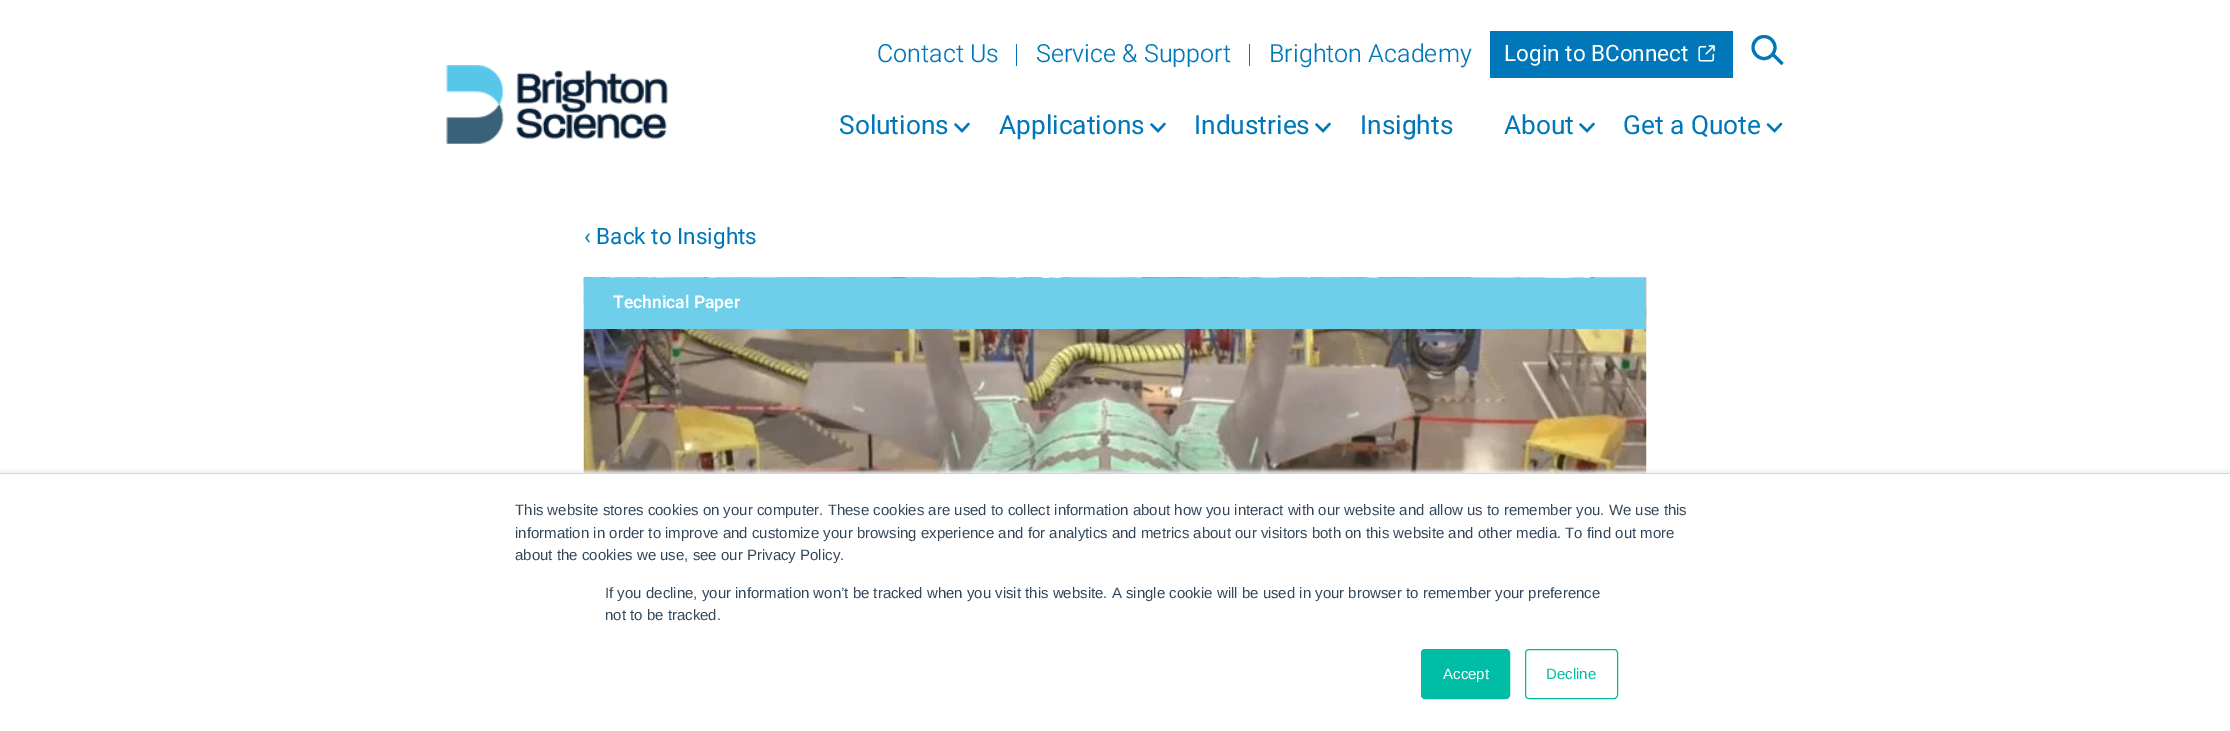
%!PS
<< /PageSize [2230 731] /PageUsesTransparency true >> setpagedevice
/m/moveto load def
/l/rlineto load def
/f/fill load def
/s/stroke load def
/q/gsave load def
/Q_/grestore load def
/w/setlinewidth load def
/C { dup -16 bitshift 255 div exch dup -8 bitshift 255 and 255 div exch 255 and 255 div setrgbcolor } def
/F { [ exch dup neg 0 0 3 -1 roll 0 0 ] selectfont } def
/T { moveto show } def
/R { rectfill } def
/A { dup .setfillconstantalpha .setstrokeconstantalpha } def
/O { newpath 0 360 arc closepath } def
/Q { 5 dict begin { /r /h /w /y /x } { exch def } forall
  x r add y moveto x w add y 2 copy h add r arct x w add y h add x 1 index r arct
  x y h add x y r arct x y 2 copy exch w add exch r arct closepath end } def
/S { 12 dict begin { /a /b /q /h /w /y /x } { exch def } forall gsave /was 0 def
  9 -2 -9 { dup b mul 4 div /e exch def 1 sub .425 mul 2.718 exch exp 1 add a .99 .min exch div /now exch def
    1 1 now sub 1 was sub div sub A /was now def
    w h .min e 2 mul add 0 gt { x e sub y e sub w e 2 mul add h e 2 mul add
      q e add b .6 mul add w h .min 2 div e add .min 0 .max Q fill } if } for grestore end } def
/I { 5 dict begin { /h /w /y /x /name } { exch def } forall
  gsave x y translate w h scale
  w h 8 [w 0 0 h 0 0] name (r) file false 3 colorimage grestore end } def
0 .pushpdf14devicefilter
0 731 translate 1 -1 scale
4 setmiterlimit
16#FFFFFF C
0 0 2230 731 R
/Heebo-Light 25 F
16#0077B8 C
(Contact Us) 877 62 T
1016 44 1 22 R
(Service & Support) 1036 62 T
1249 44 1 22 R
(Brighton Academy) 1269 62 T
1490 31 243 47 R
/Heebo-Regular 22.5 F
16#FFFFFF C
(Login to BConnect) 1504 61 T
(1.rgb) 1698 45 17 17 I
16#0077B8 C
3.1 w
1764 47.5 11 O s
1772.5 54 m 10 10 l s
(2.rgb) 446 65 222 79 I
/Heebo-Regular 26.25 F
(Solutions) 839 134 T
2.3 w
1 setlinecap
968.5 124 m -6.5 7 l -6.5 -6.5 l s
(Applications) 999 134 T
1164.5 124 m -6.5 7 l -6.5 -6.5 l s
(Industries) 1194 134 T
1329.5 124 m -6.5 7 l -6.5 -6.5 l s
(Insights) 1360 134 T
(About) 1504 134 T
1593.5 124 m -6.5 7 l -6.5 -6.5 l s
(Get a Quote) 1623 134 T
1781 124 m -6.5 7 l -6.5 -6.5 l s
/Heebo-Regular 22.5 F
(‹ Back to Insights) 584 244 T
(3.rgb) 583 277 1064 196 I
16#6FCFEB C
584 278 1062 51 R
/Heebo-SemiBold 17.5 F
16#FFFFFF C
(Technical Paper) 613 308 T
16#EAF0F6 C
0 471 2230 259 0 2 1 S
16#FFFFFF C
0 474 2230 257 R
16#CBD6E2 C
0 473 2230 1 R
/LiberationSans-Regular 15 F
16#33475B C
(This website stores cookies on your computer. These cookies are used to collect information about how you interact with our website and allow us to remember you. We use this) 515 515 T
(information in order to improve and customize your browsing experience and for analytics and metrics about our visitors both on this website and other media. To find out more) 515 538 T
(about the cookies we use, see our Privacy Policy.) 515 560 T
(If you decline, your information won’t be tracked when you visit this website. A single cookie will be used in your browser to remember your preference) 605 598 T
(not to be tracked.) 605 620 T
16#00BDA5 C
1421.5 649.5 88 49 3.5 Q q f Q_
1 w
0 setlinecap
s
16#FFFFFF C
(Accept) 1443 679 T
16#00BDA5 C
1525.5 649.5 92 49 3.5 Q s
(Decline) 1546 679 T
.poppdf14devicefilter showpage
